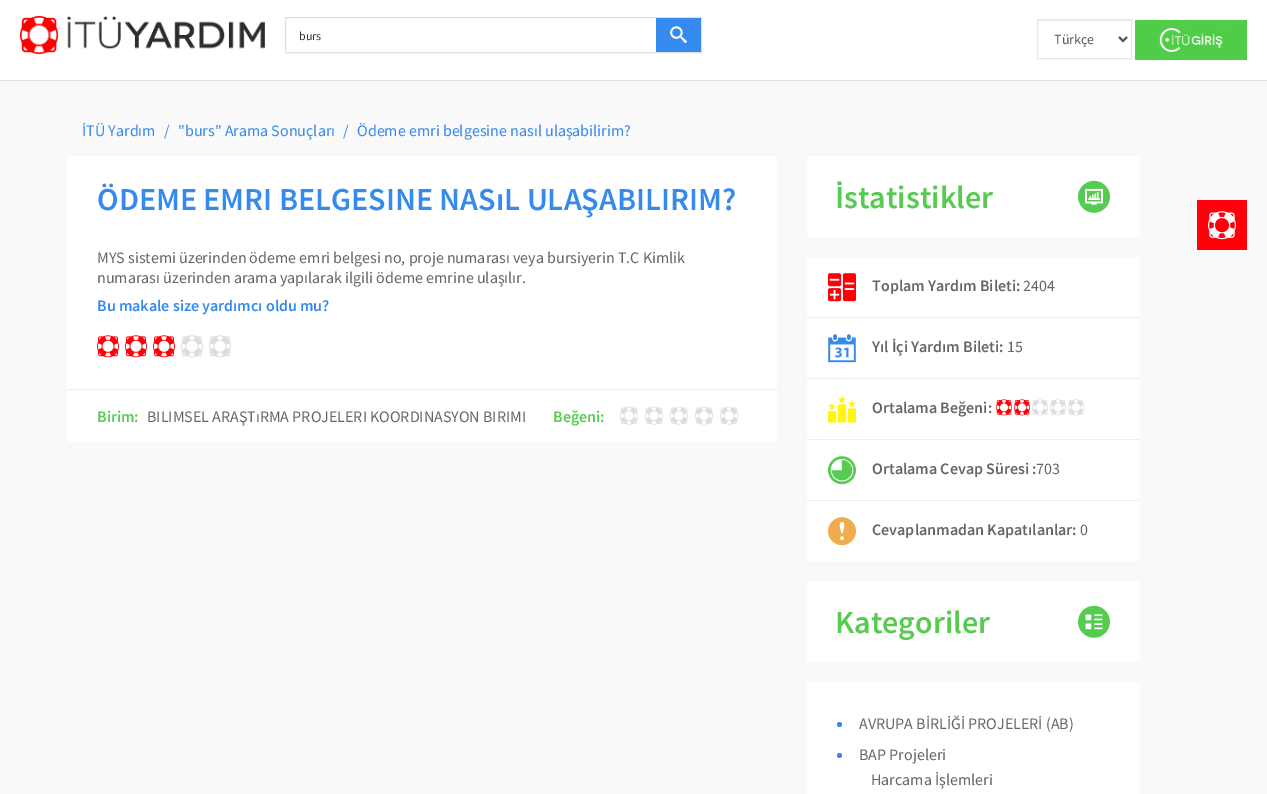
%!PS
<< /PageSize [1267 794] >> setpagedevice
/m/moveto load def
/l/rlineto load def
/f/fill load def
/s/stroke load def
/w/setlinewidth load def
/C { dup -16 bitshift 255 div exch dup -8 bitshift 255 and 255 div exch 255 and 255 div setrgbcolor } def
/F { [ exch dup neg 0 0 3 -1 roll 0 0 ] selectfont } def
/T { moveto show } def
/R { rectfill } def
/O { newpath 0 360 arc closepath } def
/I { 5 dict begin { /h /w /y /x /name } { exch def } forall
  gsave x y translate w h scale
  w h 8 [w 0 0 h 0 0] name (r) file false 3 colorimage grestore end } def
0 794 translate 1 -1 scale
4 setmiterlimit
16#F9F9F9 C
0 0 1267 794 R
16#FFFFFF C
0 0 1267 80 R
16#E0E0E0 C
0 80 1267 1 R
(1.rgb) 20 16 245 38 I
285.5 17.5 416 35 rectstroke
/SourceSansPro-Regular 12 F
16#333333 C
(burs) 299 40 T
16#358AED C
656 18 45 34 R
(2.rgb) 670 26 17 17 I
16#ECECEC C
1038 20 93 1 R
16#E7E7E7 C
1037.5 19.5 94 39 rectstroke
16#555555 C
2 w
1119 37 m 4 4 l 4 -4 l s
/SourceSansPro-Regular 14 F
(Türkçe) 1054 44 T
(3.rgb) 1135 20 112 40 I
/SourceSansPro-Regular 16 F
16#358AED C
(İTÜ Yardım) 82 136 T
(/) 164 136 T
("burs" Arama Sonuçları) 178 136 T
(/) 343 136 T
(Ödeme emri belgesine nasıl ulaşabilirim?) 357 136 T
16#FFFFFF C
67 156 710 286 R
/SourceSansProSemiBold-SemiBold 32 F
16#358AED C
(ÖDEME EMRI BELGESINE NASıL ULAŞABILIRIM?) 97 210 T
/SourceSansPro-Regular 16 F
16#666666 C
(MYS sistemi üzerinden ödeme emri belgesi no, proje numarası veya bursiyerin T.C Kimlik) 97 263 T
(numarası üzerinden arama yapılarak ilgili ödeme emrine ulaşılır.) 97 283 T
/SourceSansProSemiBold-SemiBold 16 F
16#358AED C
(Bu makale size yardımcı oldu mu?) 97 311 T
(4.rgb) 97 335 22 23 I
(4.rgb) 125 335 22 23 I
(4.rgb) 153 335 22 23 I
(5.rgb) 181 335 22 23 I
(5.rgb) 209 335 22 23 I
16#EEEEEE C
67 389 710 1 R
16#55CC50 C
(Birim:) 97 422 T
/SourceSansPro-Regular 16 F
16#666666 C
(BILIMSEL ARAŞTıRMA PROJELERI KOORDINASYON BIRIMI) 147 422 T
/SourceSansProSemiBold-SemiBold 16 F
16#55CC50 C
(Beğeni:) 553 422 T
(6.rgb) 620 406 18 19 I
(6.rgb) 645 406 18 19 I
(6.rgb) 670 406 18 19 I
(6.rgb) 695 406 18 19 I
(6.rgb) 720 406 18 19 I
16#FFFFFF C
807 156 333 81 R
/SourceSansProSemiBold-SemiBold 32 F
16#55CC50 C
(İstatistikler) 835 208 T
(7.rgb) 1078 180 32 33 I
16#FFFFFF C
807 257 333 60 R
(8.rgb) 828 273 28 29 I
/SourceSansProSemiBold-SemiBold 16 F
16#666666 C
(Toplam Yardım Bileti:) 872 291 T
/SourceSansPro-Regular 16 F
(2404) 1023 291 T
16#FFFFFF C
807 318 333 60 R
16#EEEEEE C
807 317 333 1 R
(9.rgb) 828 334 28 29 I
/SourceSansProSemiBold-SemiBold 16 F
16#666666 C
(Yıl İçi Yardım Bileti:) 872 352 T
/SourceSansPro-Regular 16 F
(15) 1007 352 T
16#FFFFFF C
807 379 333 60 R
16#EEEEEE C
807 378 333 1 R
(10.rgb) 828 396 28 27 I
/SourceSansProSemiBold-SemiBold 16 F
16#666666 C
(Ortalama Beğeni:) 872 413 T
(11.rgb) 996 399 16 17 I
(11.rgb) 1014 399 16 17 I
(12.rgb) 1032 399 16 17 I
(12.rgb) 1050 399 16 17 I
(12.rgb) 1068 399 16 17 I
16#FFFFFF C
807 440 333 60 R
16#EEEEEE C
807 439 333 1 R
(13.rgb) 828 456 28 29 I
16#666666 C
(Ortalama Cevap Süresi :) 872 474 T
/SourceSansPro-Regular 16 F
(703) 1036 474 T
16#FFFFFF C
807 501 333 60 R
16#EEEEEE C
807 500 333 1 R
(14.rgb) 828 517 28 29 I
/SourceSansProSemiBold-SemiBold 16 F
16#666666 C
(Cevaplanmadan Kapatılanlar:) 872 535 T
/SourceSansPro-Regular 16 F
(0) 1080 535 T
16#FFFFFF C
807 581 333 81 R
/SourceSansProSemiBold-SemiBold 32 F
16#55CC50 C
(Kategoriler) 835 633 T
(15.rgb) 1078 605 32 33 I
16#FFFFFF C
807 682 333 112 R
16#358AED C
839.5 724.5 2.5 O f
/SourceSansPro-Regular 16 F
16#666666 C
(AVRUPA BİRLİĞİ PROJELERİ \(AB\)) 859 729 T
16#358AED C
839.5 755.5 2.5 O f
16#666666 C
(BAP Projeleri) 859 760 T
(Harcama İşlemleri) 871 785 T
16#FF000B C
1197 200 50 50 R
(16.rgb) 1208 211 28 29 I
showpage
